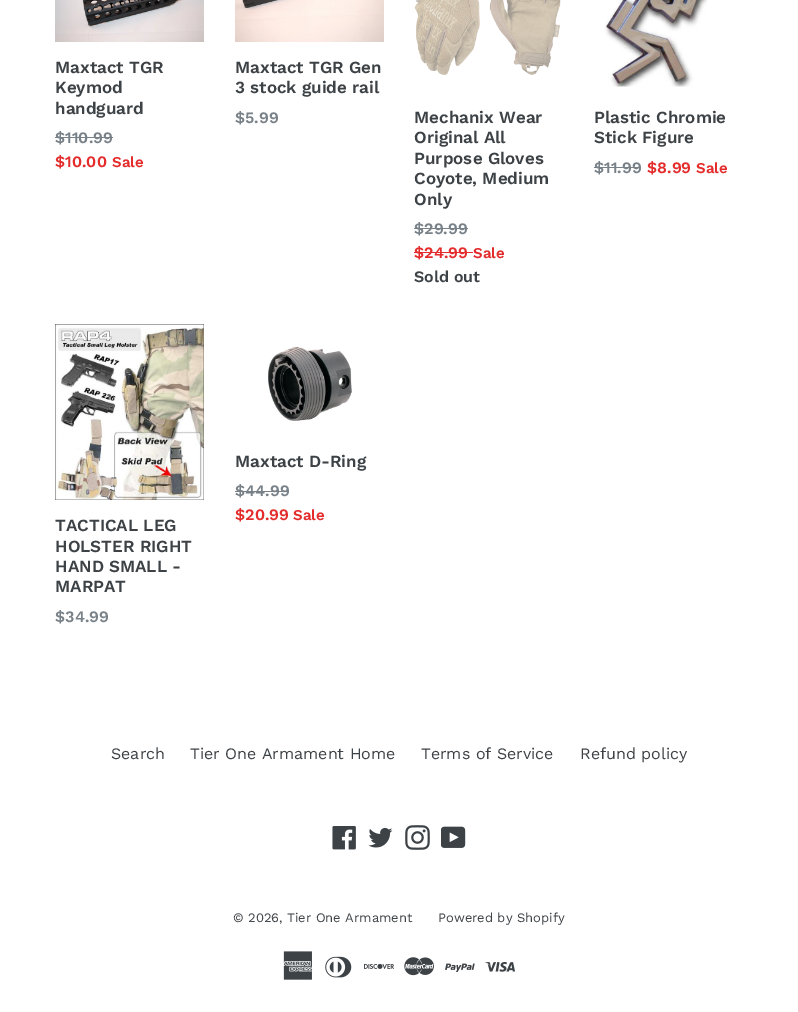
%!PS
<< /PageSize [798 1012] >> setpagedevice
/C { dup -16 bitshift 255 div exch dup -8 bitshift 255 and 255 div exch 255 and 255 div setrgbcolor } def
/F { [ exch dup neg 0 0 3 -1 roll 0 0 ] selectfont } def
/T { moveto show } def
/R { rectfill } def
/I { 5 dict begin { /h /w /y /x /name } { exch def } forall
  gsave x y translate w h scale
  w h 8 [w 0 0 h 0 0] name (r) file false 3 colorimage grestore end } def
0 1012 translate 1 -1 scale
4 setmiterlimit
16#FFFFFF C
0 0 798 1012 R
(1.rgb) 55 0 149 42 I
/WorkSans-SemiBold 17 F
16#3D4246 C
(Maxtact TGR) 55 73 T
(Keymod) 55 93 T
(handguard) 55 114 T
/WorkSans-SemiBold 16 F
16#788188 C
($110.99) 55 143 T
55 137 58 1 R
16#E32C2B C
($10.00) 55 167 T
/WorkSans-SemiBold 15 F
(Sale) 112 167 T
(2.rgb) 235 0 149 42 I
/WorkSans-SemiBold 17 F
16#3D4246 C
(Maxtact TGR Gen) 235 73 T
(3 stock guide rail) 235 93 T
/WorkSans-SemiBold 16 F
16#788188 C
($5.99) 235 123 T
(3.rgb) 414 0 147 75 I
/WorkSans-SemiBold 17 F
16#3D4246 C
(Mechanix Wear) 414 123 T
(Original All) 414 143 T
(Purpose Gloves) 414 164 T
(Coyote, Medium) 414 184 T
(Only) 414 205 T
/WorkSans-SemiBold 16 F
16#788188 C
($29.99) 414 234 T
414 228 54 1 R
16#E32C2B C
($24.99) 414 258 T
414 252 59 1 R
/WorkSans-SemiBold 15 F
(Sale) 473 258 T
/WorkSans-SemiBold 16 F
16#3D4246 C
(Sold out) 414 282 T
(4.rgb) 604 0 104 87 I
/WorkSans-SemiBold 17 F
(Plastic Chromie) 594 123 T
(Stick Figure) 594 143 T
/WorkSans-SemiBold 16 F
16#788188 C
($11.99) 594 173 T
594 167 47 1 R
16#E32C2B C
($8.99) 647 173 T
/WorkSans-SemiBold 15 F
(Sale) 696 173 T
(5.rgb) 268 346 84 75 I
/WorkSans-SemiBold 17 F
16#3D4246 C
(Maxtact D-Ring) 235 467 T
/WorkSans-SemiBold 16 F
16#788188 C
($44.99) 235 496 T
235 491 54 1 R
16#E32C2B C
($20.99) 235 520 T
/WorkSans-SemiBold 15 F
(Sale) 293 520 T
(6.rgb) 55 324 149 176 I
/WorkSans-SemiBold 17 F
16#3D4246 C
(TACTICAL LEG) 55 531 T
(HOLSTER RIGHT) 55 552 T
(HAND SMALL -) 55 572 T
(MARPAT) 55 592 T
/WorkSans-SemiBold 16 F
16#788188 C
($34.99) 55 622 T
/WorkSans-Regular 16 F
16#3D4246 C
(Search) 111 759 T
(Tier One Armament Home) 190 759 T
(Terms of Service) 421 759 T
(Refund policy) 580 759 T
(7.rgb) 332 826 24 24 I
(8.rgb) 368 828 25 20 I
(9.rgb) 405 825 25 25 I
(10.rgb) 441 826 25 22 I
/WorkSans-Regular 13 F
(© 2026, Tier One Armament) 233 922 T
(Powered by Shopify) 438 922 T
(11.rgb) 283 951 30 29 I
(12.rgb) 325 956 27 22 I
(13.rgb) 364 963 30 6 I
(14.rgb) 404 957 30 19 I
(15.rgb) 445 963 30 9 I
(16.rgb) 485 962 30 10 I
showpage
